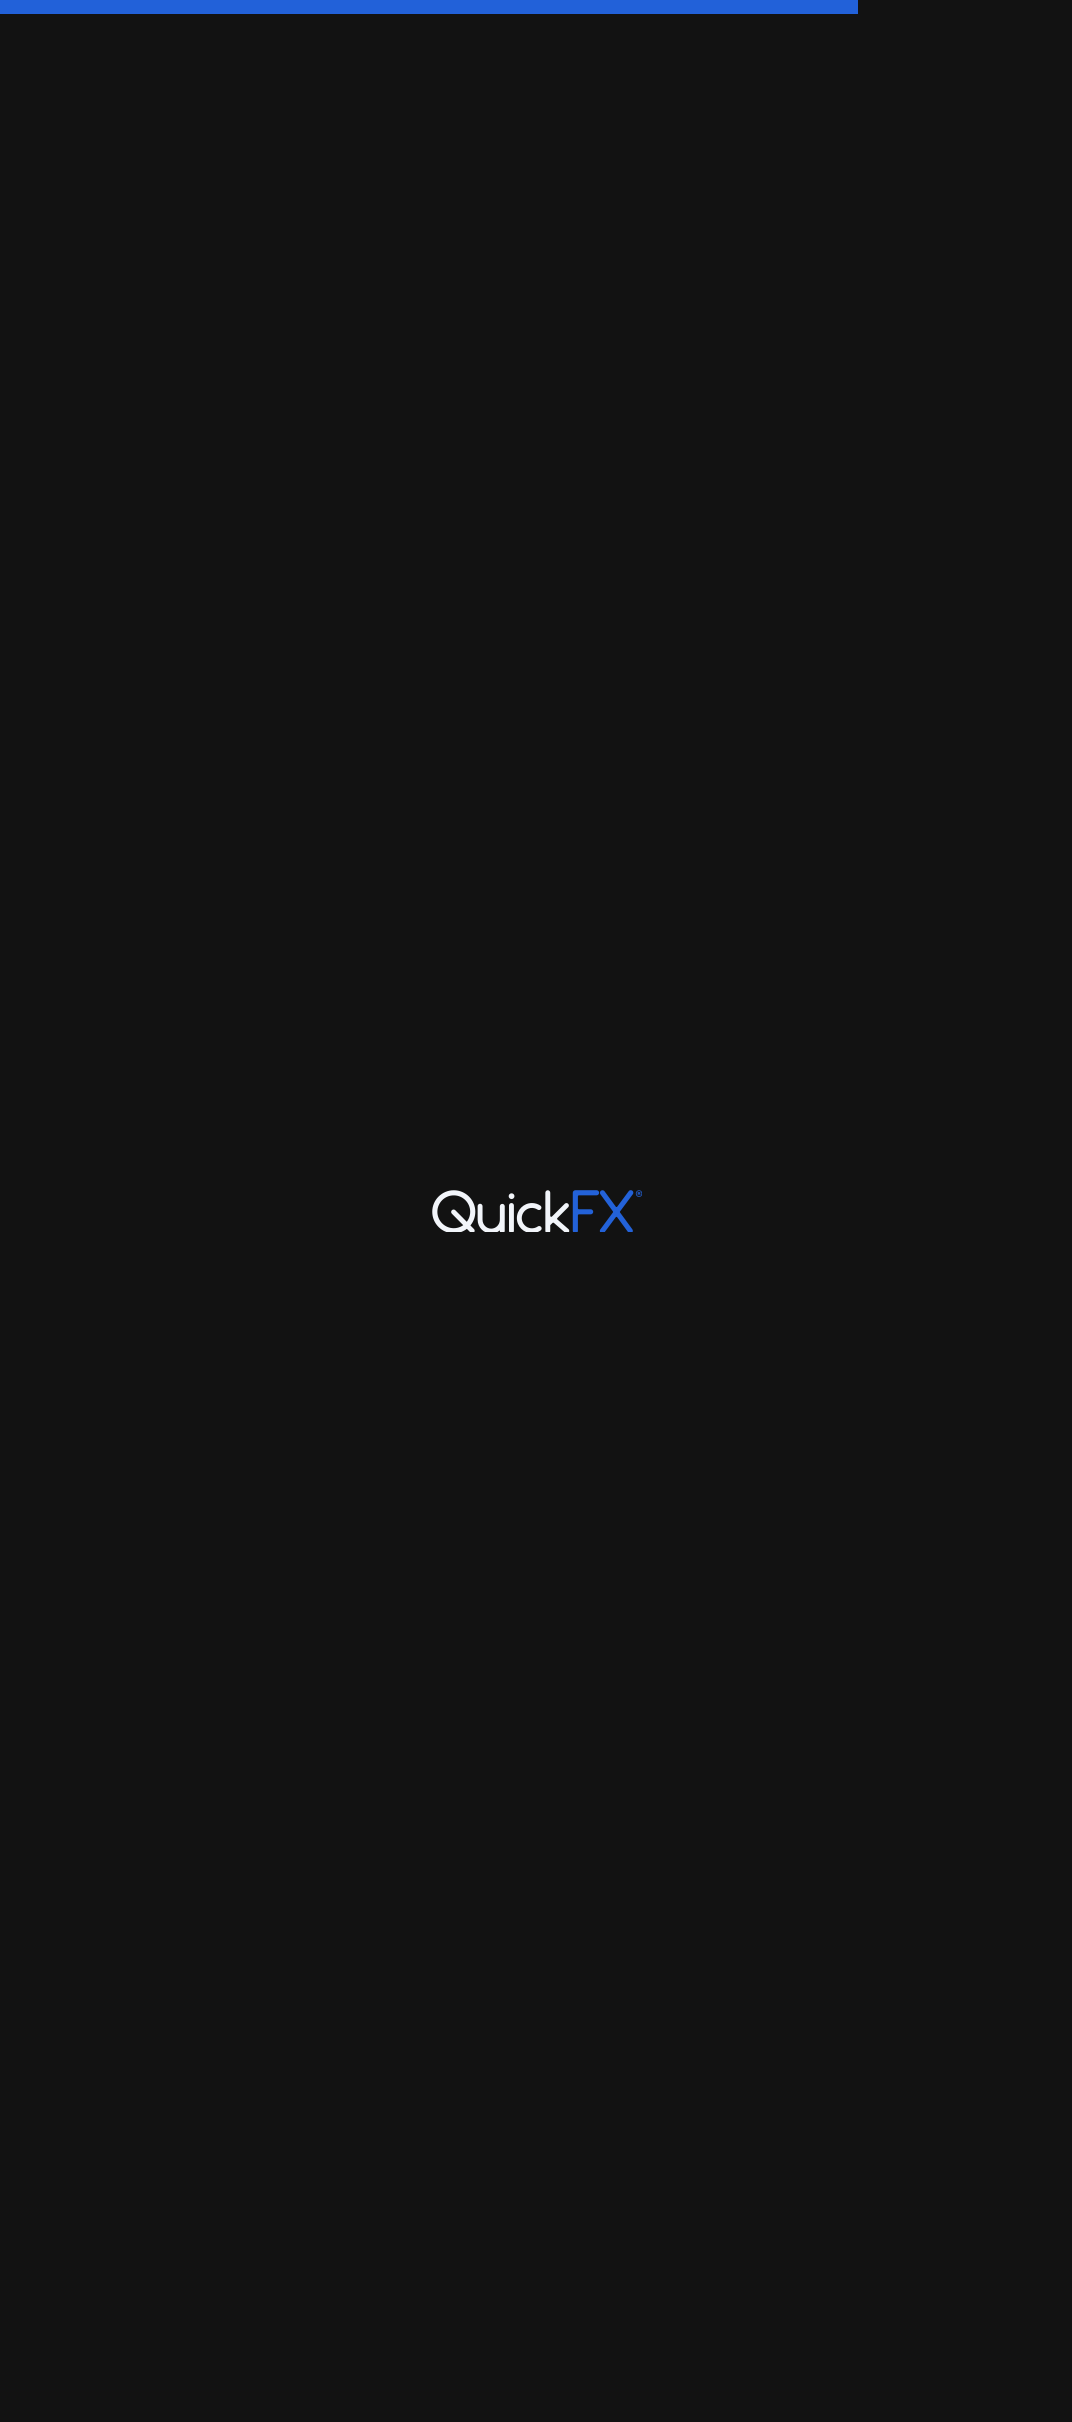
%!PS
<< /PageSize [1072 2422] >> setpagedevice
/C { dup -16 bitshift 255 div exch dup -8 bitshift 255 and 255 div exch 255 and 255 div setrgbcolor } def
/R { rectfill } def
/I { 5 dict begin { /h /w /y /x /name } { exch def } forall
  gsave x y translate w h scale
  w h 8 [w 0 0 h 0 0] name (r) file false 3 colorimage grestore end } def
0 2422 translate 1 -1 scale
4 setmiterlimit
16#121212 C
0 0 1072 2422 R
16#2261D9 C
0 0 858 14 R
(1.rgb) 432 1190 210 42 I
showpage
